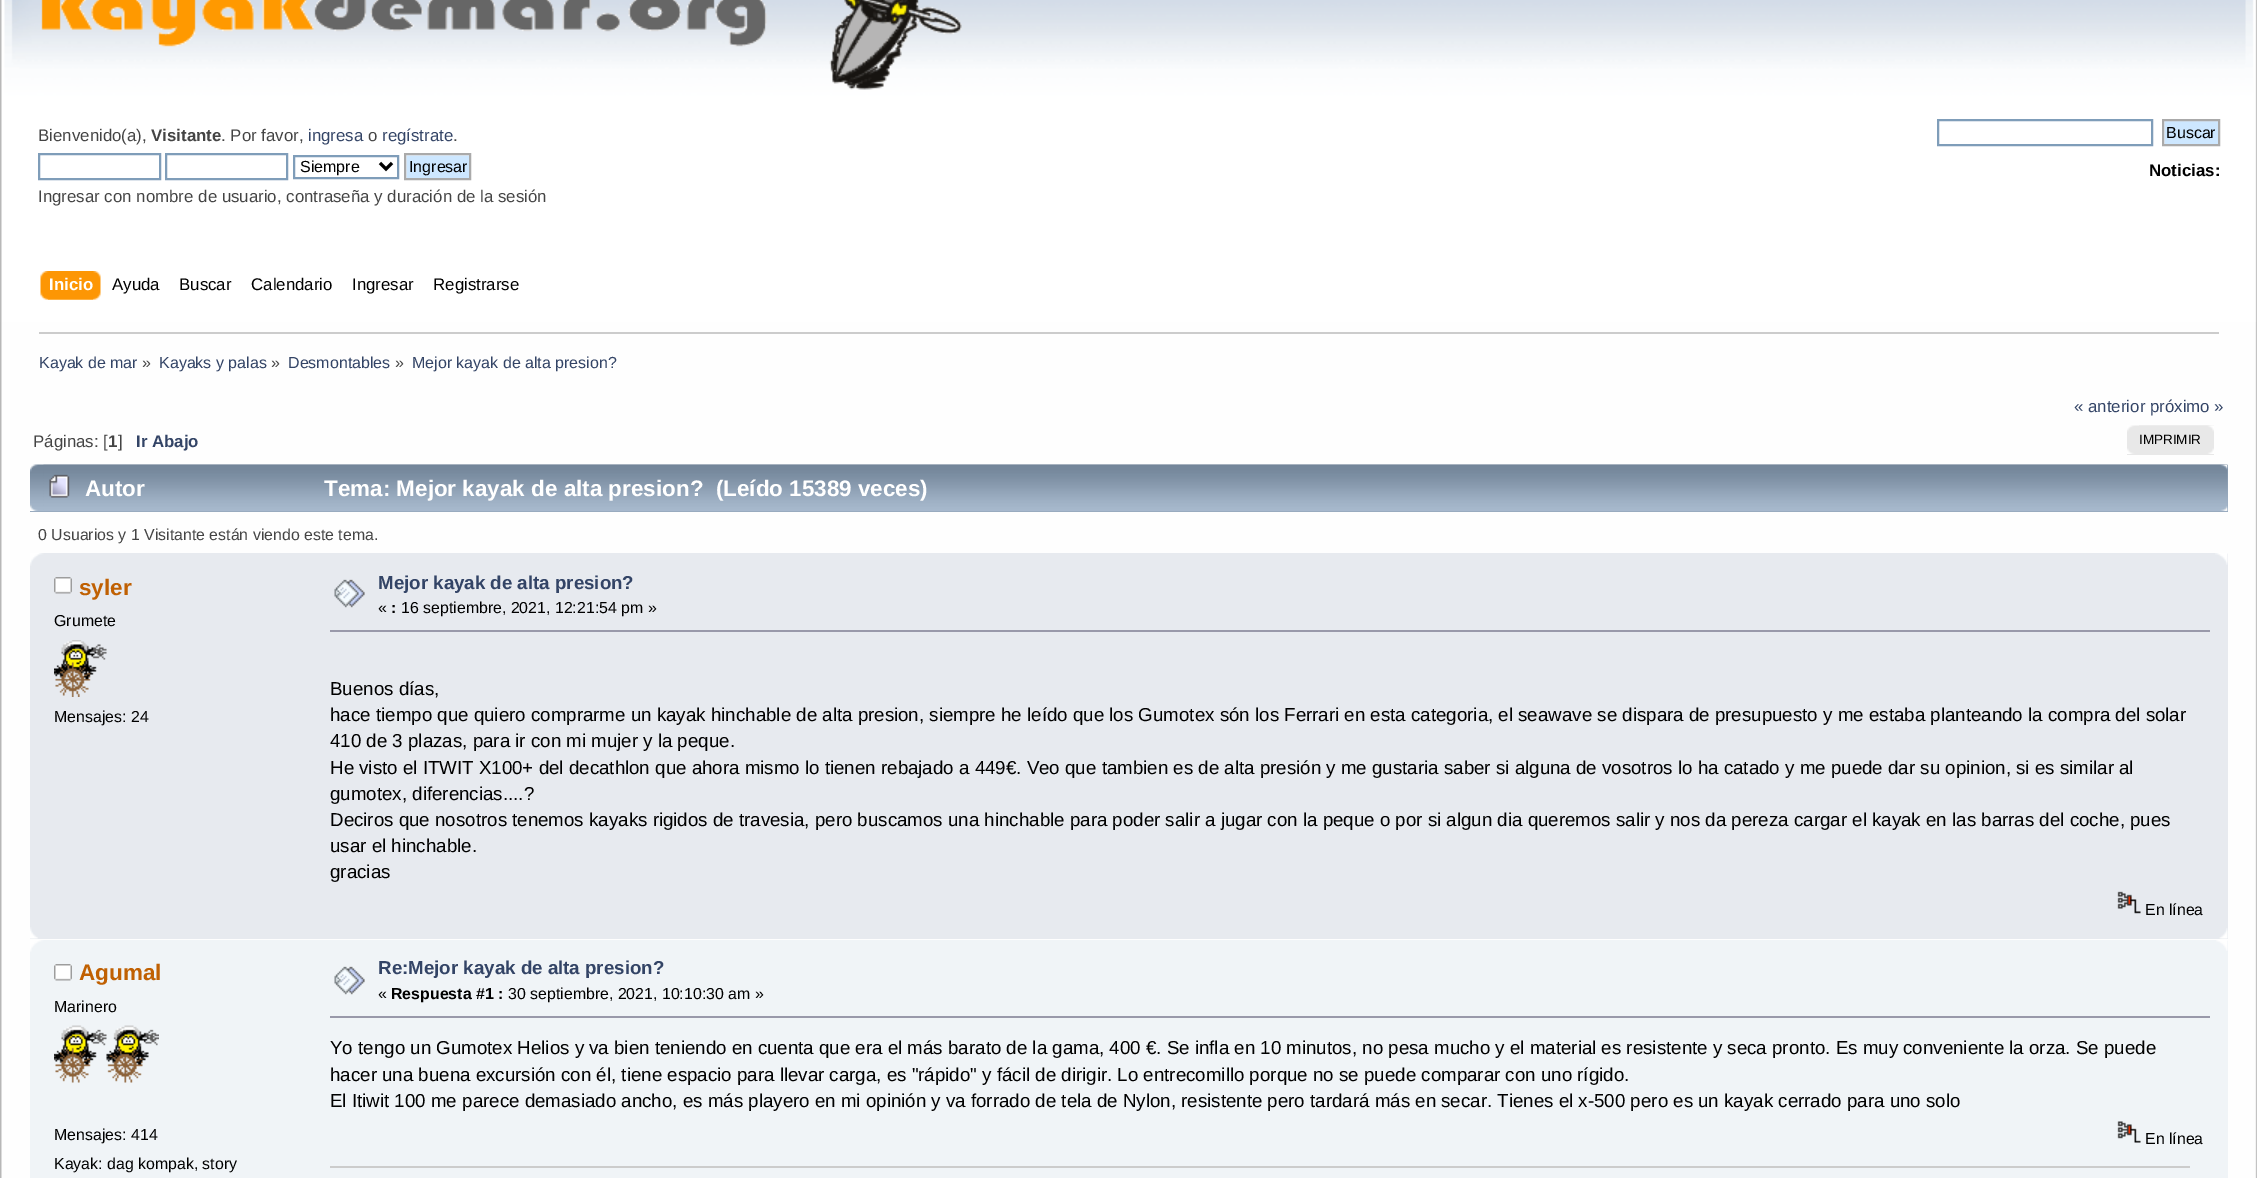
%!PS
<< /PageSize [2257 1178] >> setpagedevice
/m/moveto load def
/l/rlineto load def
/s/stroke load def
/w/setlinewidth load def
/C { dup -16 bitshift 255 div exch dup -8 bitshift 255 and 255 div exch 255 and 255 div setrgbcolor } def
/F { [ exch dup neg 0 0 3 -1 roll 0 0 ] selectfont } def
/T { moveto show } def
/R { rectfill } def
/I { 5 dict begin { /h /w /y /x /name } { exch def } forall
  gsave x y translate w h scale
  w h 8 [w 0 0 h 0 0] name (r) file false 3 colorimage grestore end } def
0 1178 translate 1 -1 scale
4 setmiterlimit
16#FEFEFE C
0 0 2257 1178 R
(1.rgb) 0 0 2245 322 I
(2.rgb) 2245 0 12 322 I
(3.rgb) 41 0 921 90 I
/LiberationSans-Regular 16.85 F
16#444444 C
(Bienvenido\(a\),) 38 141 T
/LiberationSans-Bold 16.85 F
(Visitante) 151 141 T
/LiberationSans-Regular 16.85 F
(. Por favor,) 221 141 T
16#334466 C
(ingresa) 308 141 T
16#444444 C
(o) 368 141 T
16#334466 C
(regístrate) 382 141 T
16#444444 C
(.) 453 141 T
16#7F9DB9 C
2 w
39 154 121 25 rectstroke
166 154 121 25 rectstroke
294 156 104 22 rectstroke
16#000000 C
3 w
380 163 m 6 6 l 6 -6 l s
/LiberationSans-Regular 16 F
(Siempre) 300 172 T
(4.rgb) 406 155 63 23 I
16#AAAAAA C
2 w
405 154 65 25 rectstroke
16#000000 C
(Ingresar) 409 172 T
/LiberationSans-Regular 16.85 F
16#444444 C
(Ingresar con nombre de usuario, contraseña y duración de la sesión) 38 202 T
16#7F9DB9 C
1938 120 214 25 rectstroke
(5.rgb) 2164 121 54 23 I
16#AAAAAA C
2163 120 56 25 rectstroke
/LiberationSans-Regular 16 F
16#000000 C
(Buscar) 2166 138 T
/LiberationSans-Bold 16.85 F
(Noticias:) 2149 176 T
(6.rgb) 48 271 53 29 I
(7.rgb) 40 271 53 29 I
16#FFFFFF C
(Inicio) 49 290 T
/LiberationSans-Regular 16.85 F
16#000000 C
(Ayuda) 112 290 T
(Buscar) 179 290 T
(Calendario) 251 290 T
(Ingresar) 352 290 T
(Registrarse) 433 290 T
(8.rgb) 0 322 2 856 I
(9.rgb) 2255 322 2 856 I
16#CCCCCC C
39 332 2180 2 R
/LiberationSans-Regular 16 F
16#334466 C
(Kayak de mar) 39 368 T
16#444444 C
(») 142 368 T
16#334466 C
(Kayaks y palas) 159 368 T
16#444444 C
(») 271 368 T
16#334466 C
(Desmontables) 288 368 T
16#444444 C
(») 395 368 T
16#334466 C
(Mejor kayak de alta presion?) 412 368 T
/LiberationSans-Regular 16.85 F
(« anterior próximo ») 2074 412 T
16#444444 C
(Páginas: [) 33 447 T
/LiberationSans-Bold 16.85 F
(1) 108 447 T
/LiberationSans-Regular 16.85 F
(]) 118 447 T
/LiberationSans-Bold 16.85 F
16#334466 C
(Ir Abajo) 136 447 T
16#E8E8E8 C
2127 454 87 1 R
(10.rgb) 2127 425 87 29 I
(11.rgb) 2139 425 75 29 I
/LiberationSans-Regular 13.5 F
16#000000 C
(IMPRIMIR) 2139 444 T
16#99ABBF C
30 465 2198 47 R
(12.rgb) 30 464 2198 47 I
(13.rgb) 43 464 2185 47 I
(14.rgb) 49 474 21 24 I
/LiberationSans-Bold 22.45 F
16#FFFFFF C
(Autor) 85 496 T
(Tema: Mejor kayak de alta presion?  \(Leído 15389 veces\)) 324 496 T
/LiberationSans-Regular 15.9 F
16#444444 C
(0 Usuarios y 1 Visitante están viendo este tema.) 38 540 T
16#E7EAEF C
30 554 2198 385 R
(15.rgb) 30 553 2198 13 I
(16.rgb) 2215 553 13 12 I
(17.rgb) 54 577 18 17 I
/LiberationSans-Bold 22.45 F
16#C06002 C
(syler) 79 595 T
/LiberationSans-Regular 15.9 F
16#000000 C
(Grumete) 54 626 T
(18.rgb) 54 640 53 57 I
(Mensajes: 24) 54 722 T
(19.rgb) 334 579 31 29 I
/LiberationSans-Bold 18.72 F
16#334466 C
(Mejor kayak de alta presion?) 378 589 T
/LiberationSans-Regular 15.9 F
16#000000 C
(«) 378 613 T
/LiberationSans-Bold 15.9 F
(:) 391 613 T
/LiberationSans-Regular 15.9 F
(16 septiembre, 2021, 12:21:54 pm ») 401 613 T
16#9999AA C
330 630 1880 2 R
/LiberationSans-Regular 18.72 F
16#000000 C
(Buenos días,) 330 695 T
(hace tiempo que quiero comprarme un kayak hinchable de alta presion, siempre he leído que los Gumotex són los Ferrari en esta categoria, el seawave se dispara de presupuesto y me estaba planteando la compra del solar) 330 721 T
(410 de 3 plazas, para ir con mi mujer y la peque.) 330 747 T
(He visto el ITWIT X100+ del decathlon que ahora mismo lo tienen rebajado a 449€. Veo que tambien es de alta presión y me gustaria saber si alguna de vosotros lo ha catado y me puede dar su opinion, si es similar al) 330 774 T
(gumotex, diferencias....?) 330 800 T
(Deciros que nosotros tenemos kayaks rigidos de travesia, pero buscamos una hinchable para poder salir a jugar con la peque o por si algun dia queremos salir y nos da pereza cargar el kayak en las barras del coche, pues) 330 826 T
(usar el hinchable.) 330 852 T
(gracias) 330 878 T
(20.rgb) 2117 891 24 23 I
/LiberationSans-Regular 15.9 F
(En línea) 2145 915 T
(21.rgb) 30 927 8 12 I
(22.rgb) 2219 928 9 11 I
16#F0F4F7 C
30 941 2198 237 R
(23.rgb) 30 940 2198 12 I
(24.rgb) 2216 940 12 11 I
(25.rgb) 54 964 18 17 I
/LiberationSans-Bold 22.45 F
16#C06002 C
(Agumal) 79 980 T
/LiberationSans-Regular 15.9 F
16#000000 C
(Marinero) 54 1012 T
(26.rgb) 54 1025 53 58 I
(27.rgb) 106 1025 53 58 I
(Mensajes: 414) 54 1140 T
(Kayak: dag kompak, story) 54 1169 T
(28.rgb) 334 966 31 29 I
/LiberationSans-Bold 18.72 F
16#334466 C
(Re:Mejor kayak de alta presion?) 378 974 T
/LiberationSans-Regular 15.9 F
16#000000 C
(«) 378 999 T
/LiberationSans-Bold 15.9 F
(Respuesta #1 :) 391 999 T
/LiberationSans-Regular 15.9 F
(30 septiembre, 2021, 10:10:30 am ») 508 999 T
16#9999AA C
330 1016 1880 2 R
/LiberationSans-Regular 18.72 F
16#000000 C
(Yo tengo un Gumotex Helios y va bien teniendo en cuenta que era el más barato de la gama, 400 €. Se infla en 10 minutos, no pesa mucho y el material es resistente y seca pronto. Es muy conveniente la orza. Se puede) 330 1054 T
(hacer una buena excursión con él, tiene espacio para llevar carga, es "rápido" y fácil de dirigir. Lo entrecomillo porque no se puede comparar con uno rígido.) 330 1081 T
(El Itiwit 100 me parece demasiado ancho, es más playero en mi opinión y va forrado de tela de Nylon, resistente pero tardará más en secar. Tienes el x-500 pero es un kayak cerrado para uno solo) 330 1107 T
(29.rgb) 2117 1121 24 22 I
/LiberationSans-Regular 15.9 F
(En línea) 2145 1144 T
16#CCCCCC C
330 1166 1860 2 R
showpage
